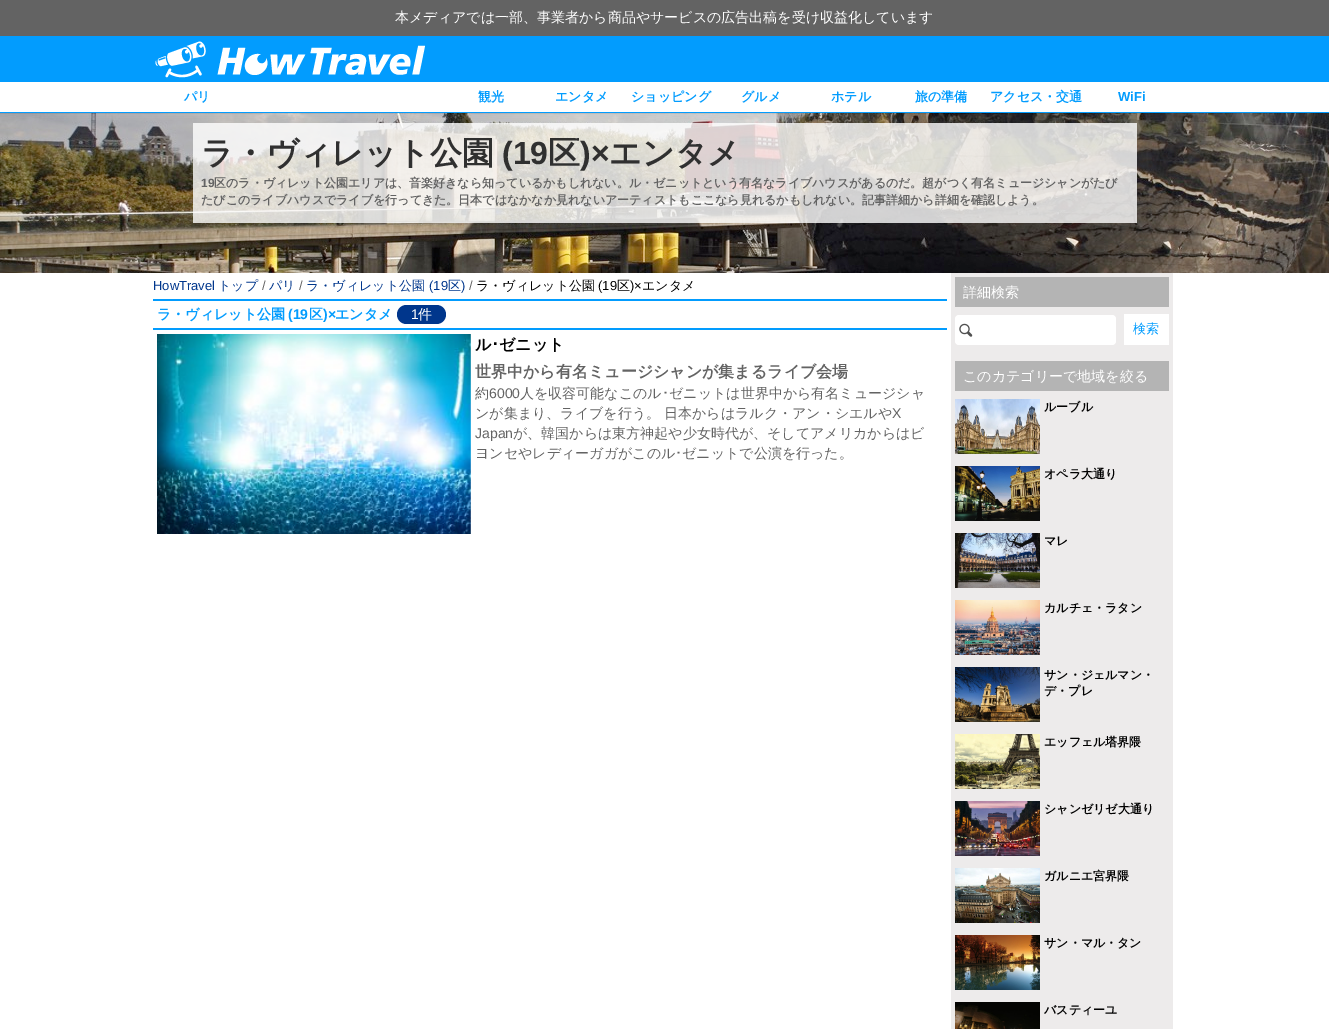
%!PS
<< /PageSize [1329 1029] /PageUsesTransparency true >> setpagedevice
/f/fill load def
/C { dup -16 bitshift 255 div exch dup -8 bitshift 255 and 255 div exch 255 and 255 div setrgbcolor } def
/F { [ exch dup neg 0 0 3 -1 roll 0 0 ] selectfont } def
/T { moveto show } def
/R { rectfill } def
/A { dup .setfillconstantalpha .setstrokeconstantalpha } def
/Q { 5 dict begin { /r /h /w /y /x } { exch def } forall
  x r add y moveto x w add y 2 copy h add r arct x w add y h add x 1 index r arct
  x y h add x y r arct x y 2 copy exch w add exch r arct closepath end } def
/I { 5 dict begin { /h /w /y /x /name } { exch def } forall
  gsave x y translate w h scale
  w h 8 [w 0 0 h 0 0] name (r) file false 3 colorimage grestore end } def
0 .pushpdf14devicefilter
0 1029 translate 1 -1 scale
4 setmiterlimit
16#FFFFFF C
0 0 1329 1029 R
16#636363 C
0 0 1329 36 R
/WenQuanYiZenHei-Medium 14 F
16#FFFFFF C
(本メディアでは一部、事業者から商品やサービスの広告出稿を受け収益化しています) 395 22 T
16#029CFE C
0 36 1329 46 R
(1.rgb) 155 41 270 37 I
0 112 1329 1 R
/WenQuanYiZenHei-Bold 13 F
(パリ) 184 101 T
(観光) 478 101 T
(エンタメ) 555 101 T
(ショッピング) 631 101 T
(グルメ) 741 101 T
(ホテル) 831 101 T
(旅の準備) 915 101 T
(アクセス・交通) 990 101 T
/LiberationSans-Bold 13 F
(WiFi) 1118 101 T
(2.rgb) 0 113 1329 160 I
0.8 A
16#FFFFFF C
193 123 944 100 R
/WenQuanYiZenHei-Bold 32 F
1 A
16#303030 C
(ラ・ヴィレット公園) 201 164 T
/LiberationSans-Bold 32 F
(\(19) 502 164 T
/WenQuanYiZenHei-Bold 32 F
(区) 548 164 T
/LiberationSans-Bold 32 F
(\)×) 580 164 T
/WenQuanYiZenHei-Bold 32 F
(エンタメ) 609 164 T
/LiberationSans-Bold 12 F
16#636363 C
(19) 201 187 T
/WenQuanYiZenHei-Bold 12 F
(区のラ・ヴィレット公園エリアは、音楽好きなら知っているかもしれない。ル・ゼニットという有名なライブハウスがあるのだ。超がつく有名ミュージシャンがたび) 214 187 T
(たびこのライブハウスでライブを行ってきた。日本ではなかなか見れないアーティストもここなら見れるかもしれない。記事詳細から詳細を確認しよう。) 201 204 T
/LiberationSans-Regular 13 F
16#00368C C
(HowTravel) 153 290 T
/WenQuanYiZenHei-Medium 13 F
(トップ) 218 290 T
/LiberationSans-Regular 13 F
16#636363 C
(/) 262 290 T
/WenQuanYiZenHei-Medium 13 F
16#00368C C
(パリ) 269 290 T
/LiberationSans-Regular 13 F
16#636363 C
(/) 299 290 T
/WenQuanYiZenHei-Medium 13 F
16#00368C C
(ラ・ヴィレット公園) 306 290 T
/LiberationSans-Regular 13 F
(\(19) 429 290 T
/WenQuanYiZenHei-Medium 13 F
(区) 448 290 T
/LiberationSans-Regular 13 F
(\)) 461 290 T
16#636363 C
(/) 469 290 T
/WenQuanYiZenHei-Medium 13 F
16#000000 C
(ラ・ヴィレット公園) 476 290 T
/LiberationSans-Regular 13 F
(\(19) 598 290 T
/WenQuanYiZenHei-Medium 13 F
(区) 617 290 T
/LiberationSans-Regular 13 F
(\)×) 630 290 T
/WenQuanYiZenHei-Medium 13 F
(エンタメ) 642 290 T
16#029CFE C
153 299 794 2 R
153 328 794 2 R
/WenQuanYiZenHei-Bold 14 F
(ラ・ヴィレット公園) 157 319 T
/LiberationSans-Bold 14 F
(\(19) 288 319 T
/WenQuanYiZenHei-Bold 14 F
(区) 309 319 T
/LiberationSans-Bold 14 F
(\)×) 323 319 T
/WenQuanYiZenHei-Bold 14 F
(エンタメ) 335 319 T
16#00368C C
397 305 49 19 9.5 Q f
/LiberationSans-Regular 14 F
16#FFFFFF C
(1) 411 319 T
/WenQuanYiZenHei-Medium 14 F
(件) 418 319 T
(3.rgb) 157 334 314 200 I
/WenQuanYiZenHei-Bold 16 F
16#000000 C
(ル) 475 350 T
/IPAPGothic-Bold 16 F
(･) 491 350 T
/WenQuanYiZenHei-Bold 16 F
(ゼニット) 499 350 T
16#636363 C
(世界中から有名ミュージシャンが集まるライブ会場) 475 377 T
/WenQuanYiZenHei-Medium 14 F
(約) 475 398 T
/LiberationSans-Regular 14 F
(6000) 489 398 T
/WenQuanYiZenHei-Medium 14 F
(人を収容可能なこのル) 520 398 T
/IPAPGothic-Regular 14 F
(･) 662 398 T
/WenQuanYiZenHei-Medium 14 F
(ゼニットは世界中から有名ミュージシャ) 669 398 T
(ンが集まり、ライブを行う。 日本からはラルク・アン・シエルや) 475 418 T
/LiberationSans-Regular 14 F
(X) 892 418 T
(Japan) 475 438 T
/WenQuanYiZenHei-Medium 14 F
(が、韓国からは東方神起や少女時代が、そしてアメリカからはビ) 513 438 T
(ヨンセやレディーガガがこのル) 475 458 T
/IPAPGothic-Regular 14 F
(･) 675 458 T
/WenQuanYiZenHei-Medium 14 F
(ゼニットで公演を行った。) 682 458 T
16#EDEBEB C
951 273 222 756 R
16#B4B4B4 C
955 277 214 30 R
16#FFFFFF C
(詳細検索) 963 297 T
955 315 161 30 4 Q f
(4.rgb) 959 323 14 14 I
1124 314 45 31 R
/WenQuanYiZenHei-Medium 13 F
16#029CFE C
(検索) 1133 333 T
16#B4B4B4 C
955 361 214 30 R
/WenQuanYiZenHei-Medium 14 F
16#FFFFFF C
(このカテゴリーで地域を絞る) 963 381 T
(5.rgb) 955 399 85 55 I
/WenQuanYiZenHei-Bold 12 F
16#000000 C
(ルーブル) 1044 411 T
(6.rgb) 955 466 85 55 I
(オペラ大通り) 1044 478 T
(7.rgb) 955 533 85 55 I
(マレ) 1044 545 T
(8.rgb) 955 600 85 55 I
(カルチェ・ラタン) 1044 612 T
(9.rgb) 955 667 85 55 I
(サン・ジェルマン・) 1044 679 T
(デ・プレ) 1044 695 T
(10.rgb) 955 734 85 55 I
(エッフェル塔界隈) 1044 746 T
(11.rgb) 955 801 85 55 I
(シャンゼリゼ大通り) 1044 813 T
(12.rgb) 955 868 85 55 I
(ガルニエ宮界隈) 1044 880 T
(13.rgb) 955 935 85 55 I
(サン・マル・タン) 1044 947 T
(14.rgb) 955 1002 85 27 I
(バスティーユ) 1044 1014 T
.poppdf14devicefilter showpage
